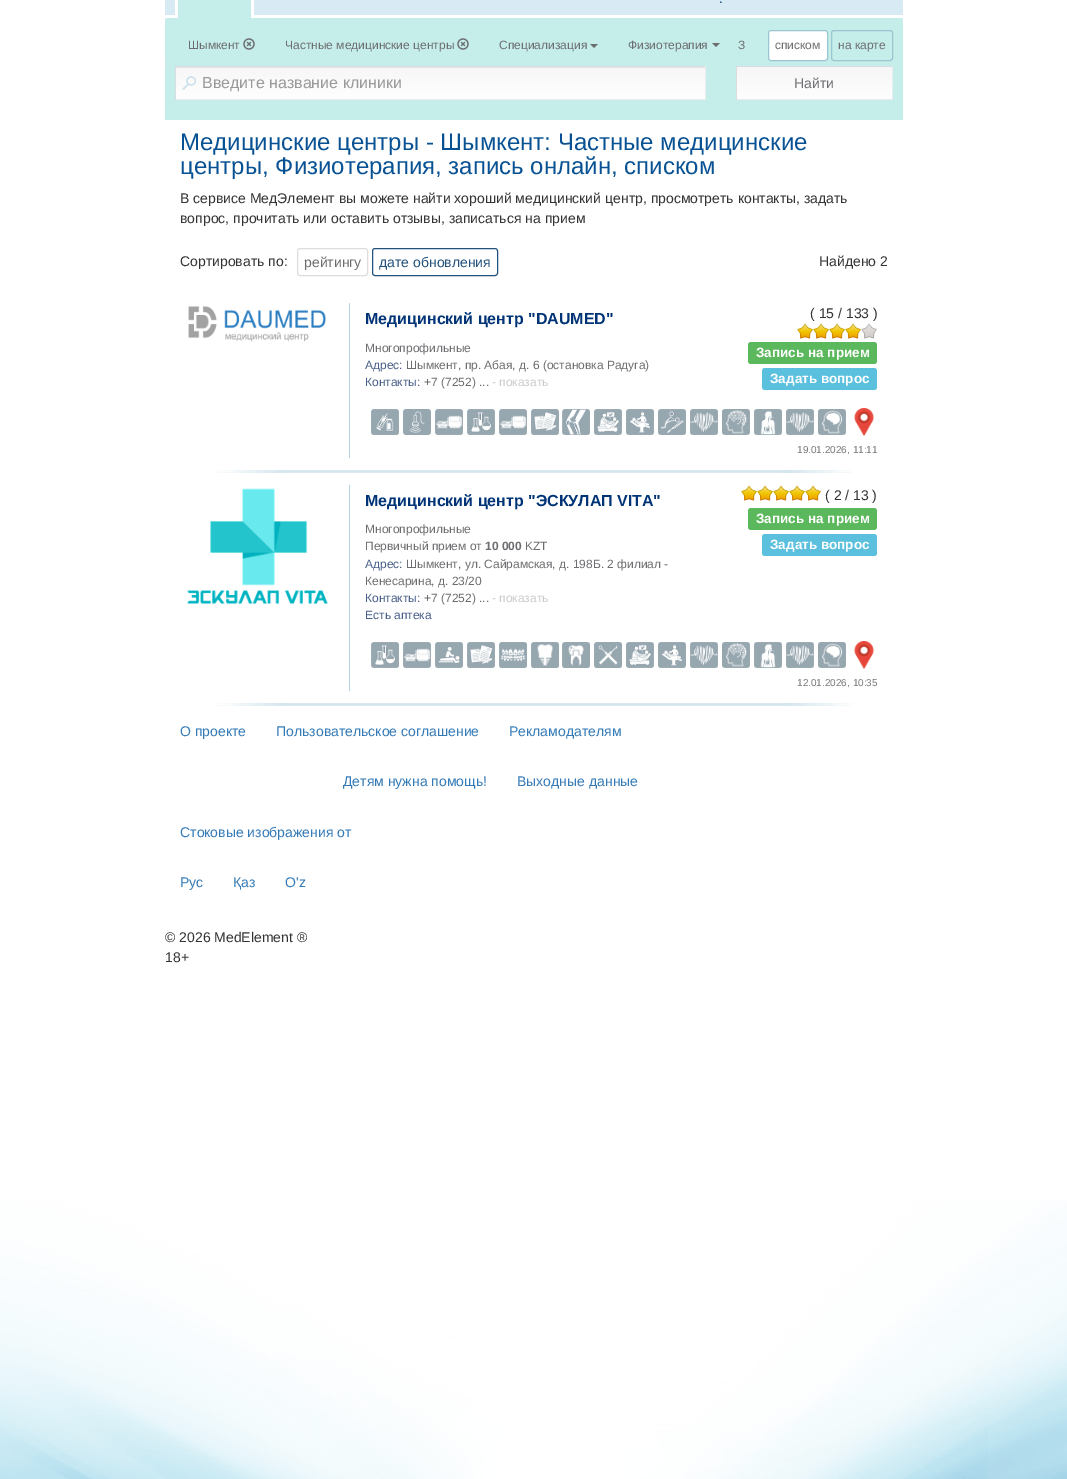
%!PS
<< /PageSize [1067 1479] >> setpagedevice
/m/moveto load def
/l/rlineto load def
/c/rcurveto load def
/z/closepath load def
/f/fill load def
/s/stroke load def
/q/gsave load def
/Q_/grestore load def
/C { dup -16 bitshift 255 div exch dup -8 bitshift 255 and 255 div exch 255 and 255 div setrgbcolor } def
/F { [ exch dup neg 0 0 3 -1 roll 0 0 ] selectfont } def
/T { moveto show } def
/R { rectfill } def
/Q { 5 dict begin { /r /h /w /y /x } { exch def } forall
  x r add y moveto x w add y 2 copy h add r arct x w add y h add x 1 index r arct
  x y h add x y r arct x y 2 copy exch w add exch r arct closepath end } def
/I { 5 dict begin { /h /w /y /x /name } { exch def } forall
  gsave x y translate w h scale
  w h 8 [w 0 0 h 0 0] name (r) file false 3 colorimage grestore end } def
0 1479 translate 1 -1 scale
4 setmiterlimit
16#FFFFFF C
0 0 1067 1479 R
16#D8EAF4 C
165 0 738 66 R
16#FFFFFF C
165 15 738 3 R
16#C5EDEA C
178 0 73 18 R
16#FFFFFF C
179 -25 m 71 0 l 2 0 4 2 4 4 c 0 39 l -79 0 l 0 -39 l 0 -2 2 -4 4 -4 c z 179 -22 m 71 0 l 1 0 1 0 1 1 c 0 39 l -73 0 l 0 -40 l z eofill
/LiberationSans-Regular 14 F
16#003476 C
(.) 719 3 T
16#C5EDEA C
165 18 738 48 4 Q f
/LiberationSans-Regular 12 F
16#6D6E71 C
(Шымкент) 188 49 T
(1.rgb) 243 38 12 12 I
(Частные медицинские центры) 285 49 T
(1.rgb) 457 38 12 12 I
(Специализация) 499 49 T
590 44 m 8 0 l -4 4 l z f
(Физиотерапия) 628 49 T
712 43 m 8 0 l -4 4 l z f
(З) 738 49 T
16#C5EDEA C
900 63 3 3 R
16#FFFFFF C
768.5 30.5 59 30 2.5 Q q f Q_
16#9AC5D1 C
s
16#6D6E71 C
(списком) 775 49 T
16#9AC5D1 C
831.5 30.5 61 30 2.5 Q s
16#6D6E71 C
(на карте) 838 49 T
16#C5EDEA C
165 66 738 54 R
(2.rgb) 176 68 529 31 I
16#E4E4E4 C
176 67 529 1 R
16#DADDDF C
175 66 531 1 R
16#EAEDEE C
705 66 1 34 R
175 99 531 1 R
16#DADDDF C
175 66 1 34 R
/LiberationSans-Regular 16 F
16#999999 C
(Введите название клиники) 202 88 T
q 737 67 m 155 0 l 0 32 l -155 0 l z clip newpath
<< /ShadingType 2 /ColorSpace /DeviceRGB /Coords [815 67 815 99] /Extend [true true] /Function << /FunctionType 2 /Domain [0 1] /C0 [.965 .965 .965] /C1 [.996 .996 .996] /N 1 >> >> shfill Q_
16#DADDDF C
736 66 157 1 R
16#EAEDEE C
892 66 1 34 R
736 99 157 1 R
16#DADDDF C
736 66 1 34 R
/LiberationSans-Regular 14 F
16#6D6E71 C
(Найти) 794 88 T
/LiberationSans-Regular 24 F
16#085294 C
(Медицинские центры - Шымкент: Частные медицинские) 180 150 T
(центры, Физиотерапия, запись онлайн, списком) 180 174 T
/LiberationSans-Regular 14 F
16#333333 C
(В сервисе МедЭлемент вы можете найти хороший медицинский центр, просмотреть контакты, задать) 180 203 T
(вопрос, прочитать или оставить отзывы, записаться на прием) 180 223 T
(Сортировать по:) 180 266 T
16#DDDDDD C
297.5 248.5 70 27 2.5 Q s
16#6D6E71 C
(рейтингу) 304 267 T
16#23527C C
372.5 248.5 125 27 2.5 Q s
(дате обновления) 379 267 T
16#333333 C
(Найдено 2) 819 266 T
(3.rgb) 188 306 138 36 I
16#B4D3E3 C
349 303 1 155 R
/LiberationSans-Bold 16 F
16#003476 C
(Медицинский центр "DAUMED") 365 324 T
/LiberationSans-Regular 12 F
16#6D6E71 C
(Многопрофильные) 365 352 T
16#485E88 C
(Адрес:) 365 369 T
16#6D6E71 C
(Шымкент, пр. Абая, д. 6 \(остановка Радуга\)) 406 369 T
16#485E88 C
(Контакты:) 365 386 T
16#6D6E71 C
(+7 \(7252\) ...) 424 386 T
16#CCCCCC C
(- показать) 492 386 T
/LiberationSans-Regular 14 F
16#333333 C
(\( 15 / 133 \)) 810 318 T
(4.rgb) 797 323 16 16 I
(4.rgb) 813 323 16 16 I
(4.rgb) 829 323 16 16 I
(4.rgb) 845 323 16 16 I
(5.rgb) 861 323 16 16 I
16#5CB85C C
748 342 129 22 3 Q f
/LiberationSans-Bold 13.5 F
16#FFFFFF C
(Запись на прием) 756 357 T
16#5BC0DE C
762 368 115 22 3 Q f
16#FFFFFF C
(Задать вопрос) 770 383 T
(6.rgb) 371 409 28 26 I
(7.rgb) 403 409 28 26 I
(8.rgb) 435 409 28 26 I
(9.rgb) 467 409 28 26 I
(10.rgb) 499 409 28 26 I
(11.rgb) 531 409 28 26 I
(12.rgb) 562 409 28 26 I
(13.rgb) 594 409 28 26 I
(14.rgb) 626 409 28 26 I
(15.rgb) 658 409 28 26 I
(16.rgb) 690 409 28 26 I
(17.rgb) 722 409 28 26 I
(18.rgb) 754 409 28 26 I
(16.rgb) 786 409 28 26 I
(19.rgb) 818 409 28 26 I
(20.rgb) 854 408 20 28 I
/LiberationSans-Regular 10 F
16#777777 C
(19.01.2026, 11:11) 797 453 T
(21.rgb) 215 470 637 3 I
(22.rgb) 187 488 141 116 I
16#B4D3E3 C
349 485 1 206 R
/LiberationSans-Bold 16 F
16#003476 C
(Медицинский центр "ЭСКУЛАП VITA") 365 506 T
/LiberationSans-Regular 12 F
16#6D6E71 C
(Многопрофильные) 365 533 T
(Первичный прием от) 365 550 T
/LiberationSans-Bold 12 F
(10 000) 485 550 T
/LiberationSans-Regular 12 F
(KZT) 525 550 T
16#485E88 C
(Адрес:) 365 568 T
16#6D6E71 C
(Шымкент, ул. Сайрамская, д. 198Б. 2 филиал -) 406 568 T
(Кенесарина, д. 23/20) 365 585 T
16#485E88 C
(Контакты:) 365 602 T
16#6D6E71 C
(+7 \(7252\) ...) 424 602 T
16#CCCCCC C
(- показать) 492 602 T
16#485E88 C
(Есть аптека) 365 619 T
(4.rgb) 741 485 16 16 I
(4.rgb) 757 485 16 16 I
(4.rgb) 773 485 16 16 I
(4.rgb) 789 485 16 16 I
(4.rgb) 805 485 16 16 I
/LiberationSans-Regular 14 F
16#333333 C
(\( 2 / 13 \)) 825 500 T
16#5CB85C C
748 508 129 22 3 Q f
/LiberationSans-Bold 13.5 F
16#FFFFFF C
(Запись на прием) 756 523 T
16#5BC0DE C
762 534 115 22 3 Q f
16#FFFFFF C
(Задать вопрос) 770 549 T
(9.rgb) 371 642 28 26 I
(23.rgb) 403 642 28 26 I
(24.rgb) 435 642 28 26 I
(11.rgb) 467 642 28 26 I
(25.rgb) 499 642 28 26 I
(26.rgb) 531 642 28 26 I
(27.rgb) 562 642 28 26 I
(28.rgb) 594 642 28 26 I
(13.rgb) 626 642 28 26 I
(29.rgb) 658 642 28 26 I
(16.rgb) 690 642 28 26 I
(17.rgb) 722 642 28 26 I
(18.rgb) 754 642 28 26 I
(16.rgb) 786 642 28 26 I
(19.rgb) 818 642 28 26 I
(20.rgb) 854 641 20 28 I
/LiberationSans-Regular 10 F
16#777777 C
(12.01.2026, 10:35) 797 686 T
(21.rgb) 215 703 637 3 I
/LiberationSans-Regular 14 F
16#337AB7 C
(О проекте) 180 736 T
(Пользовательское соглашение) 276 736 T
(Рекламодателям) 509 736 T
(Детям нужна помощь!) 343 786 T
(Выходные данные) 517 786 T
(Стоковые изображения от) 180 837 T
(Рус) 180 887 T
(Қаз) 233 887 T
(O'z) 285 887 T
16#333333 C
(© 2026 MedElement ®) 165 942 T
(18+) 165 962 T
(30.rgb) 0 1200 1067 279 I
showpage
